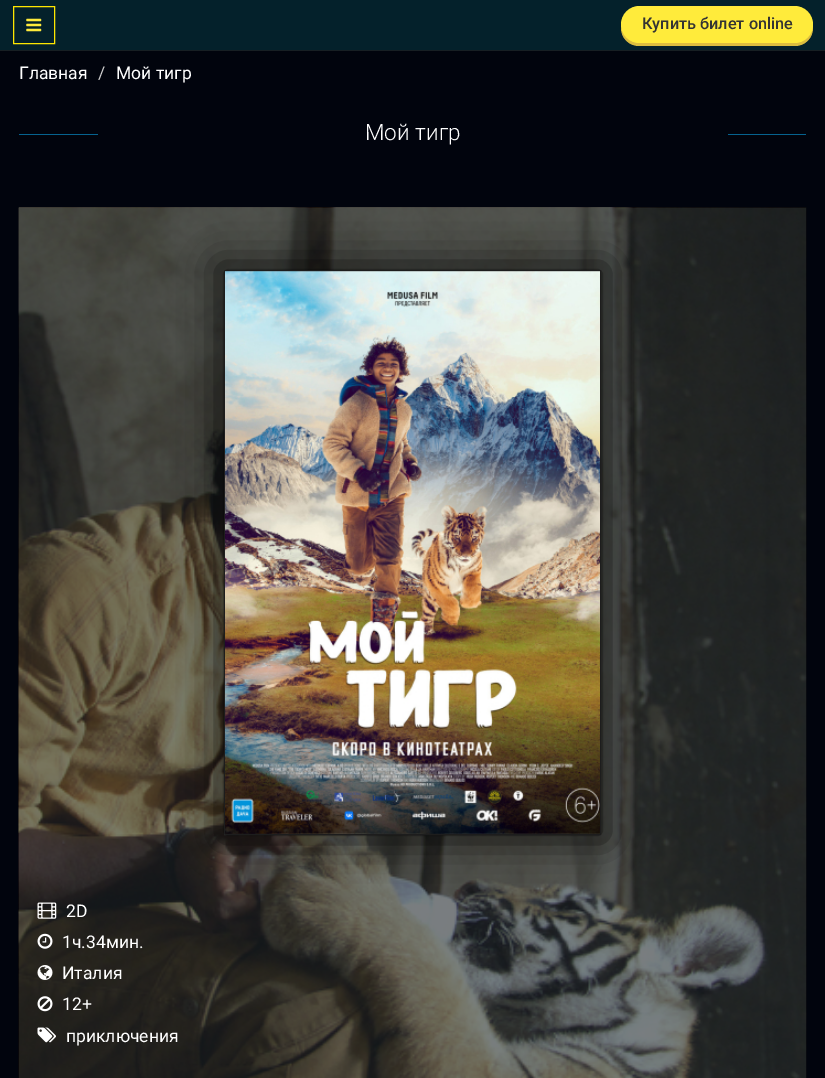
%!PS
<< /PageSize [825 1078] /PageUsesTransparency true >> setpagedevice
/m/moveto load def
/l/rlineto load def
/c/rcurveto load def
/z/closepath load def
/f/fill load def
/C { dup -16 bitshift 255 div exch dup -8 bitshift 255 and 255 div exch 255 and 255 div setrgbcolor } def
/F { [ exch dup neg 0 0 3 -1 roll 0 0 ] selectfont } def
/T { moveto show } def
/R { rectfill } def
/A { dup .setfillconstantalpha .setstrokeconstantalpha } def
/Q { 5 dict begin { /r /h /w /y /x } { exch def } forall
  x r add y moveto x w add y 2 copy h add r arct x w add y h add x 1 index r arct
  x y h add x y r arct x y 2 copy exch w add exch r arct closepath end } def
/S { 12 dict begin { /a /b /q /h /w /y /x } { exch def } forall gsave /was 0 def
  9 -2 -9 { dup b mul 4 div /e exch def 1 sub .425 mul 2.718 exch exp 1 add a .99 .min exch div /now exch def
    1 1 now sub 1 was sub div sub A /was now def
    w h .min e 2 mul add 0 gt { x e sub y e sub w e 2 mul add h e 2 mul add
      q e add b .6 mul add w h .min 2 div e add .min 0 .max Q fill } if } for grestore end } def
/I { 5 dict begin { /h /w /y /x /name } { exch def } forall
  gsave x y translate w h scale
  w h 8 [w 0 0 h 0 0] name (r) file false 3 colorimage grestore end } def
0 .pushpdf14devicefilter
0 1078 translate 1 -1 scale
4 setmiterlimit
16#01040D C
0 0 825 1078 R
16#04212B C
0 0 825 50 R
16#171F23 C
0 50 825 1 R
16#FFE600 C
13.5 6.5 41 37 rectstroke
(1.rgb) 26 18 16 14 I
16#DCBD3F C
621 25 m 0 3 l 0 10 8 18 18 18 c 156 0 l 10 0 18 -8 18 -18 c -1 -4 l 0 10 -8 18 -18 18 c -155 0 l -9 0 -17 -7 -18 -17 c z f
16#FFEB3B C
621 6 192 37 18.5 Q f
/Roboto-Medium 16.25 F
16#333333 C
(Купить билет online) 642 29 T
/Roboto-Regular 17.5 F
16#FFFFFF C
(Главная) 19 79 T
16#CCCCCC C
(/) 98 79 T
16#FFFFFF C
(Мой тигр) 116 79 T
16#06638F C
19 134 79 1 R
/Roboto-Light 22.5 F
16#FFFFFF C
(Мой тигр) 365 140 T
16#06638F C
728 134 78 1 R
(2.rgb) 18 207 789 871 I
16#3C3C3C C
224.5 270.5 376 564 rectstroke
16#000000 C
218 264 390 577 0 19 .75 S
(3.rgb) 225 271 375 563 I
(4.rgb) 37 902 20 17 I
/Roboto-Regular 17.5 F
16#FFFFFF C
(2D) 66 917 T
(5.rgb) 37 933 16 16 I
(1ч.34мин.) 62 948 T
(6.rgb) 37 965 16 15 I
(Италия) 62 979 T
(7.rgb) 37 996 16 16 I
(12+) 62 1010 T
(8.rgb) 37 1027 19 16 I
(приключения) 66 1042 T
.poppdf14devicefilter showpage
